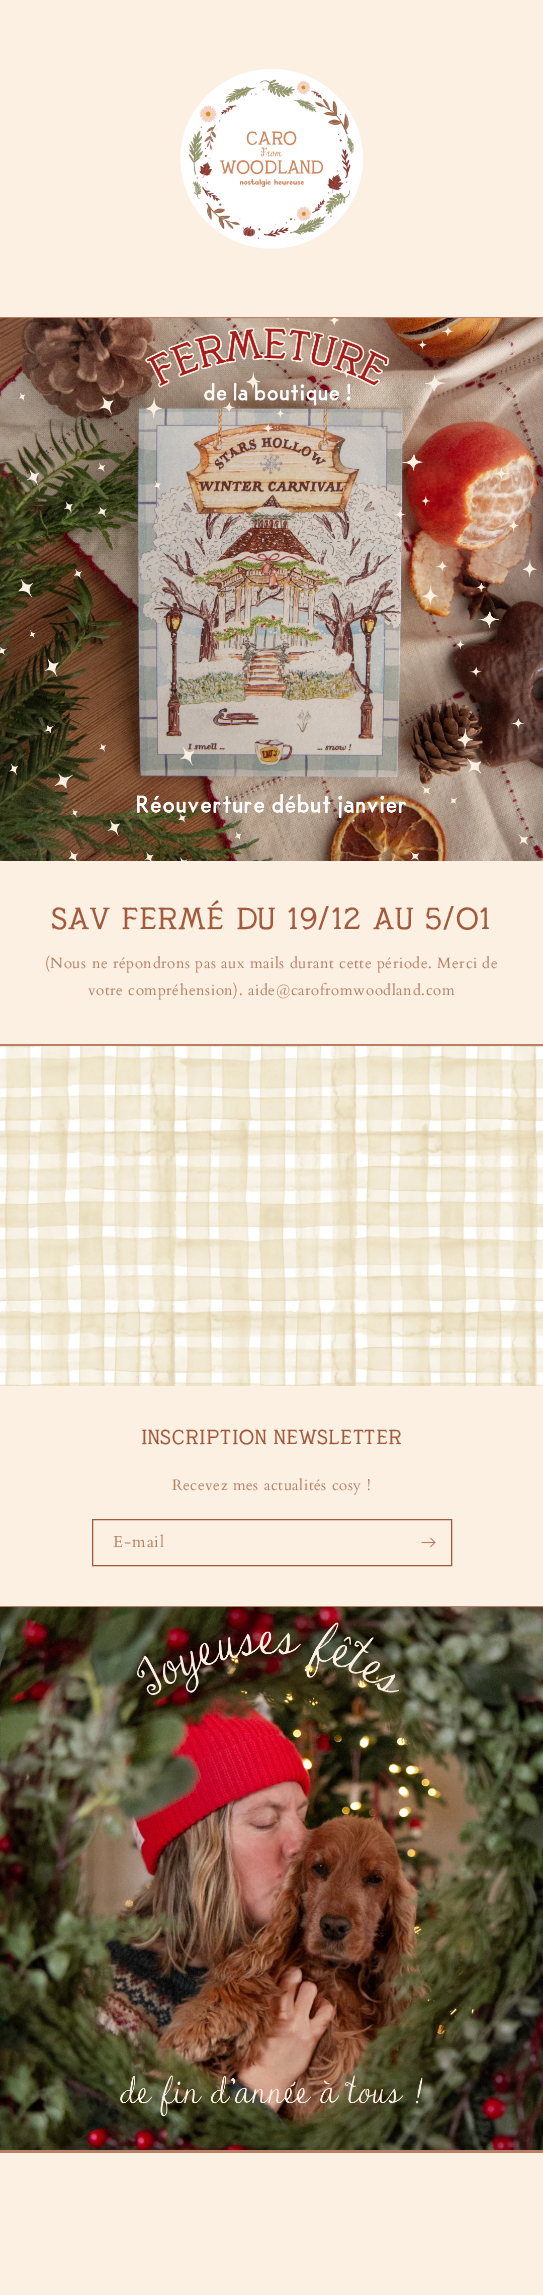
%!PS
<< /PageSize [543 2295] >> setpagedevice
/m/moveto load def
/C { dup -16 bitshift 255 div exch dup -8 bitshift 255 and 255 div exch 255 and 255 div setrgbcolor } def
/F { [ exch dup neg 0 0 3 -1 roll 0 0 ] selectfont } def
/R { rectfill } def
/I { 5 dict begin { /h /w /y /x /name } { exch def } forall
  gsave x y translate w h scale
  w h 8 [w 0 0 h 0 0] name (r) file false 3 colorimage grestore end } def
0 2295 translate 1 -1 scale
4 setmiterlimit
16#FBF0E2 C
0 0 543 2295 R
16#B97F65 C
0 317 543 1 R
(1.rgb) 180 69 183 180 I
0 1044 543 2 R
(2.rgb) 0 318 543 543 I
/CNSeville-Bold 30 F
16#A3593B C
51 929 m .6 0 (SAV fermé du 19/12 au 5/O1) ashow
/Cardo-Regular 15 F
16#B97F65 C
45 968 m .6 0 (\(Nous ne répondrons pas aux mails durant cette période. Merci de) ashow
88 995 m .6 0 (votre compréhension\). aide@carofromwoodland.com) ashow
0 1606 543 1 R
(3.rgb) 0 1046 543 340 I
/CNSeville-Bold 20 F
16#A3593B C
141 1444 m .6 0 (Inscription Newsletter) ashow
/Cardo-Regular 15 F
16#B97F65 C
172 1490 m .6 0 (Recevez mes actualités cosy !) ashow
16#A3593B C
92.5 1519.5 359 46 rectstroke
/Cardo-Regular 16 F
16#B97F65 C
113 1547 m 1 0 (E-mail) ashow
(4.rgb) 421 1537 15 11 I
0 2150 543 3 R
(5.rgb) 0 1607 543 543 I
showpage
